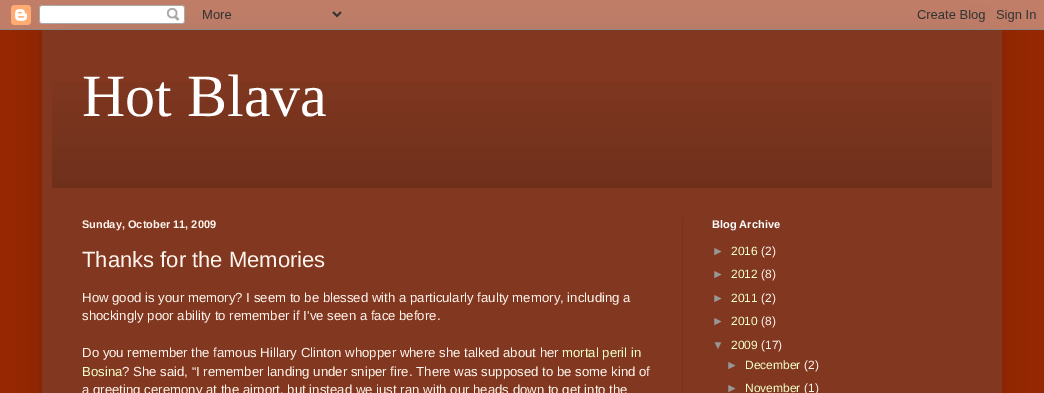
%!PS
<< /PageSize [1044 393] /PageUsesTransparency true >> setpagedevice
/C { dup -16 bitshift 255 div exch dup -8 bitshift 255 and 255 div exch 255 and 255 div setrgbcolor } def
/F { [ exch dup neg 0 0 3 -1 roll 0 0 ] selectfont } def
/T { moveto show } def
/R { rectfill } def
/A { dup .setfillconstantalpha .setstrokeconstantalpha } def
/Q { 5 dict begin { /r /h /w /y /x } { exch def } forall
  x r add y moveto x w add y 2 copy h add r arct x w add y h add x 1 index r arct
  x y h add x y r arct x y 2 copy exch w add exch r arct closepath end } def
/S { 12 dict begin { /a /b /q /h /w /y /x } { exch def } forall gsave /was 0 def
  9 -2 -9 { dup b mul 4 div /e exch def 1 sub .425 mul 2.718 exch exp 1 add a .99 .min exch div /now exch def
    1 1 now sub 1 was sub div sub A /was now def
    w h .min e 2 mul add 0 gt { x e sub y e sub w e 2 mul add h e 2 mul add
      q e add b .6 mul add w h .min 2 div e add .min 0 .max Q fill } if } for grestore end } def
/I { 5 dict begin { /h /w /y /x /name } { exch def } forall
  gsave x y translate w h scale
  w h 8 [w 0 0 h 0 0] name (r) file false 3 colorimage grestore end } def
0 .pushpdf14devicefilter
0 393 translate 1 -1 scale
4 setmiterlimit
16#972702 C
0 0 1044 393 R
16#000000 C
42 30 960 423 0 20 .15 S
(1.rgb) 0 0 1044 30 I
16#823820 C
42 30 960 363 R
(2.rgb) 52 82 940 106 I
/LiberationSerif-Regular 60 F
16#FFFFFF C
(Hot Blava) 82 116 T
16#703420 C
682 218 1 175 R
/LiberationSans-Bold 11 F
16#FFF5EE C
(Sunday, October 11, 2009) 82 228 T
/LiberationSans-Regular 22 F
(Thanks for the Memories) 82 267 T
/LiberationSans-Regular 13.2 F
(How good is your memory? I seem to be blessed with a particularly faulty memory, including a) 82 302 T
(shockingly poor ability to remember if I've seen a face before.) 82 320 T
(Do you remember the famous Hillary Clinton whopper where she talked about her) 82 357 T
16#F2FFCB C
(mortal peril in) 562 357 T
(Bosina) 82 376 T
16#FFF5EE C
(? She said, “I remember landing under sniper fire. There was supposed to be some kind of) 122 376 T
(a greeting ceremony at the airport, but instead we just ran with our heads down to get into the) 82 394 T
/LiberationSans-Bold 11 F
16#FFFFFF C
(Blog Archive) 712 228 T
/LiberationSans-Regular 12 F
16#979797 C
(►) 712 255 T
16#F2FFCB C
(2016) 731 255 T
16#FFF5EE C
(\(2\)) 761 255 T
16#979797 C
(►) 712 278 T
16#F2FFCB C
(2012) 731 278 T
16#FFF5EE C
(\(8\)) 761 278 T
16#979797 C
(►) 712 302 T
16#F2FFCB C
(2011) 731 302 T
16#FFF5EE C
(\(2\)) 761 302 T
16#979797 C
(►) 712 325 T
16#F2FFCB C
(2010) 731 325 T
16#FFF5EE C
(\(8\)) 761 325 T
16#979797 C
(▼) 712 349 T
16#F2FFCB C
(2009) 731 349 T
16#FFF5EE C
(\(17\)) 761 349 T
16#979797 C
(►) 726 369 T
16#F2FFCB C
(December) 745 369 T
16#FFF5EE C
(\(2\)) 804 369 T
16#979797 C
(►) 726 392 T
16#F2FFCB C
(November) 745 392 T
16#FFF5EE C
(\(1\)) 804 392 T
.poppdf14devicefilter showpage
